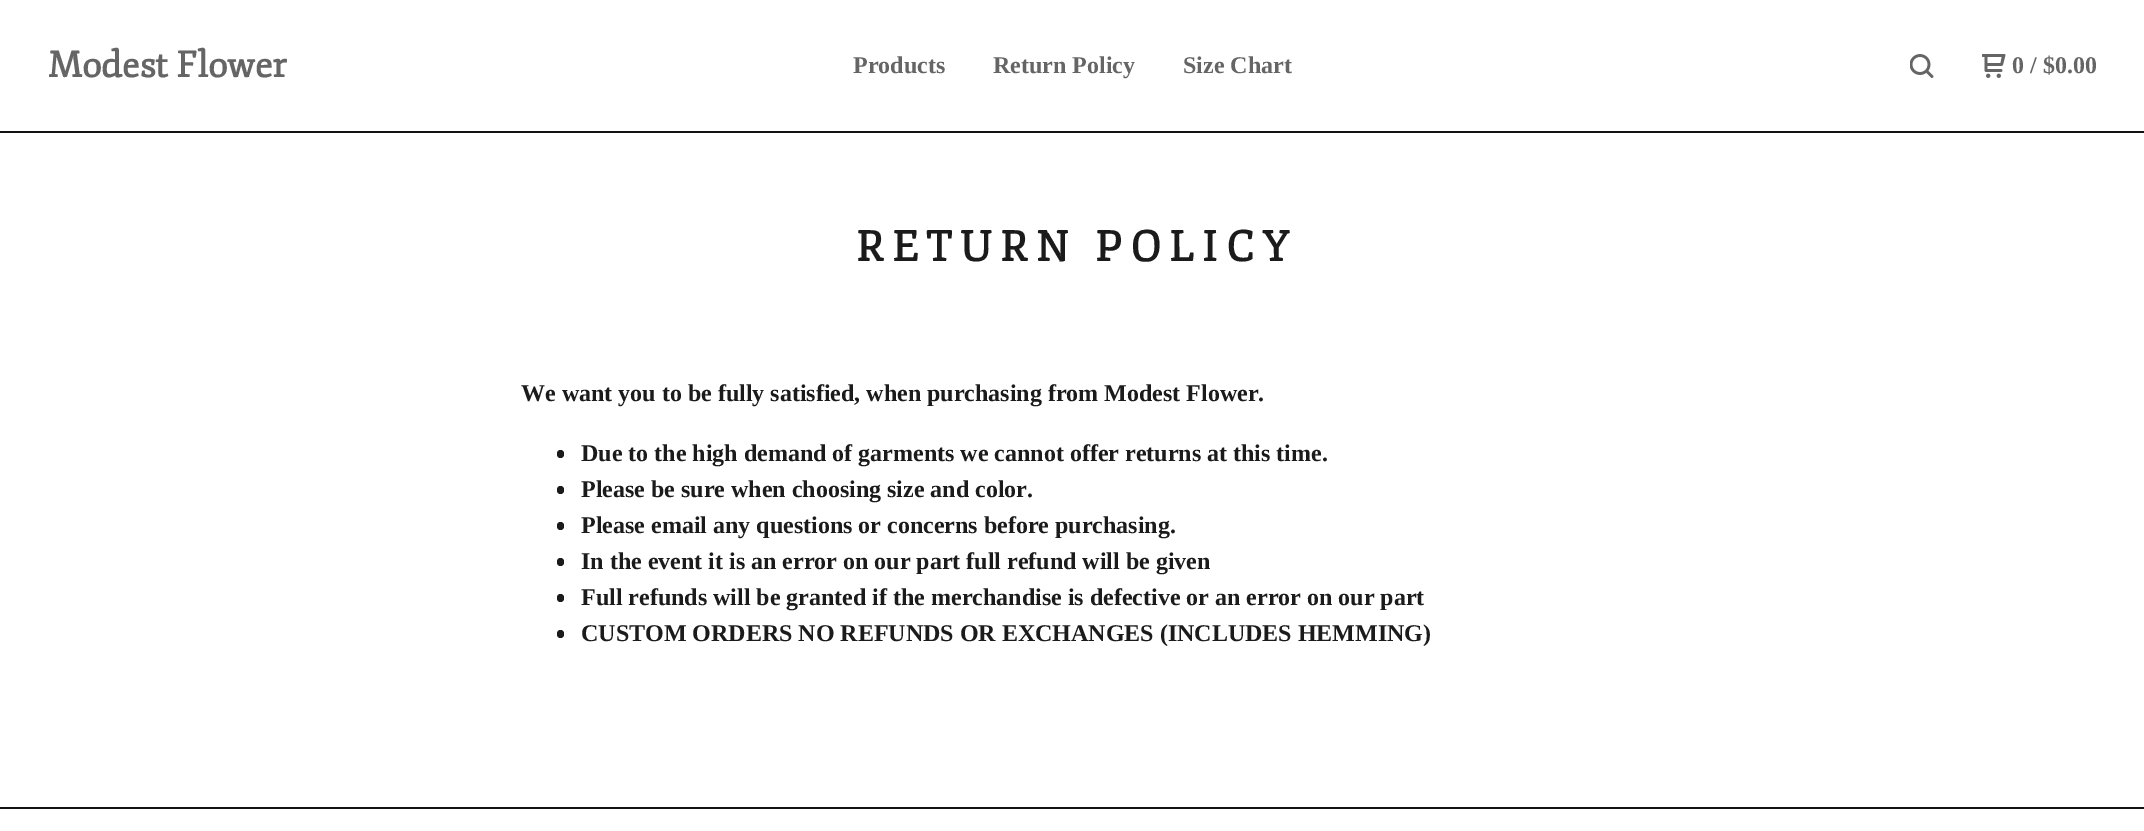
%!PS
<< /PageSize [2144 831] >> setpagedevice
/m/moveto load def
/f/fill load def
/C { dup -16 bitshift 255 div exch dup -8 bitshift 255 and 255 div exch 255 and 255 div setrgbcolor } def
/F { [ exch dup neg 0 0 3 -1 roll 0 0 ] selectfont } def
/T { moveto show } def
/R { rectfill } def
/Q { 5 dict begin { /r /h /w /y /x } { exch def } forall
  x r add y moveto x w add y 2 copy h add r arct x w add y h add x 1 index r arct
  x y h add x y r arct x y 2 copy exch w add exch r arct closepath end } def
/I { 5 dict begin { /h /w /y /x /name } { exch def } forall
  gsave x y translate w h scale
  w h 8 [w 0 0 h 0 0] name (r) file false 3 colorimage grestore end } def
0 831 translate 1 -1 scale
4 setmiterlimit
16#FFFFFF C
0 0 2144 831 R
16#141111 C
0 131 2144 2 R
/Fjord-Bold 36 F
16#656565 C
(Modest Flower) 48 77 T
/LiberationSerif-Bold 24 F
(Products) 853 73 T
(Return Policy) 993 73 T
(Size Chart) 1183 73 T
(1.rgb) 1910 54 24 24 I
(2.rgb) 1982 54 24 24 I
(0 / $0.00) 2012 73 T
/Fjord-Bold 42 F
16#1B1B1B C
856 261 m 8.4 0 (RETURN POLICY) ashow
/LiberationSerif-Bold 24 F
(We want you to be fully satisfied, when purchasing from Modest Flower.) 521 401 T
557 450 7 8 3.5 Q f
(Due to the high demand of garments we cannot offer returns at this time.) 581 461 T
557 486 7 8 3.5 Q f
(Please be sure when choosing size and color.) 581 497 T
557 522 7 8 3.5 Q f
(Please email any questions or concerns before purchasing.) 581 533 T
557 558 7 8 3.5 Q f
(In the event it is an error on our part full refund will be given) 581 569 T
557 594 7 8 3.5 Q f
(Full refunds will be granted if the merchandise is defective or an error on our part) 581 605 T
557 630 7 8 3.5 Q f
(CUSTOM ORDERS NO REFUNDS OR EXCHANGES \(INCLUDES HEMMING\)) 581 641 T
16#141111 C
0 807 2144 2 R
showpage
